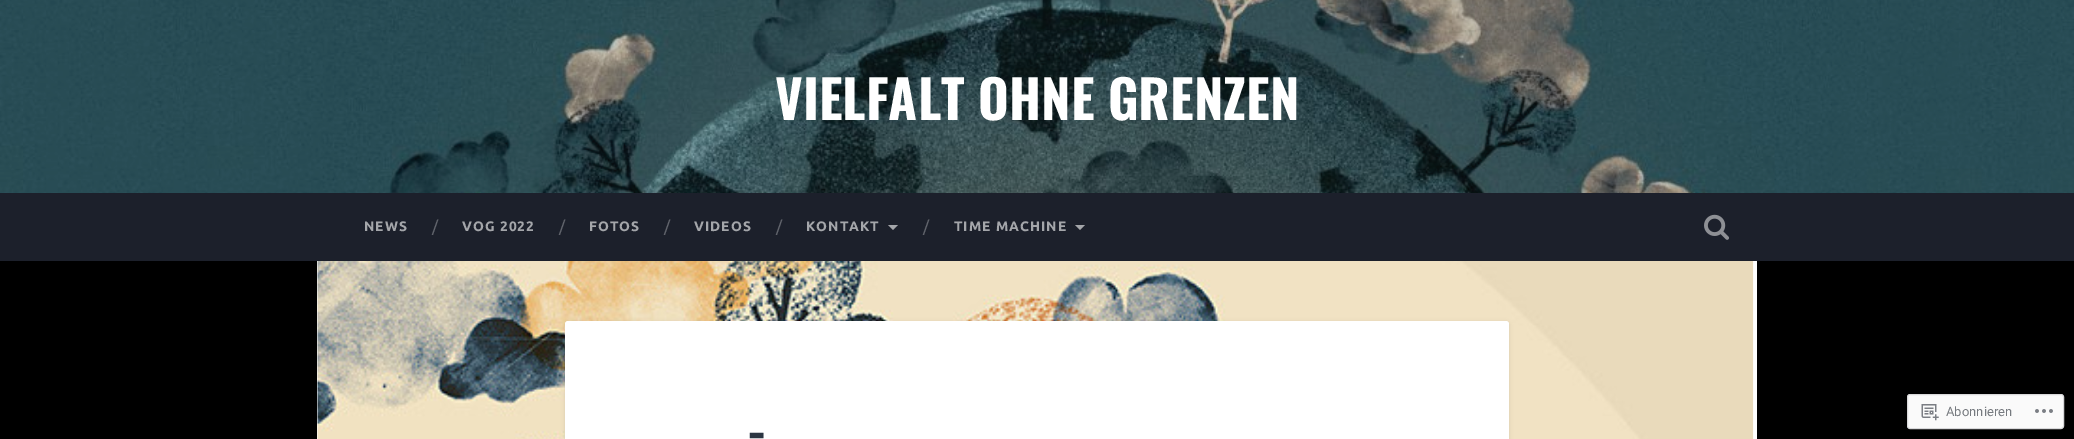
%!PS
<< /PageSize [2074 439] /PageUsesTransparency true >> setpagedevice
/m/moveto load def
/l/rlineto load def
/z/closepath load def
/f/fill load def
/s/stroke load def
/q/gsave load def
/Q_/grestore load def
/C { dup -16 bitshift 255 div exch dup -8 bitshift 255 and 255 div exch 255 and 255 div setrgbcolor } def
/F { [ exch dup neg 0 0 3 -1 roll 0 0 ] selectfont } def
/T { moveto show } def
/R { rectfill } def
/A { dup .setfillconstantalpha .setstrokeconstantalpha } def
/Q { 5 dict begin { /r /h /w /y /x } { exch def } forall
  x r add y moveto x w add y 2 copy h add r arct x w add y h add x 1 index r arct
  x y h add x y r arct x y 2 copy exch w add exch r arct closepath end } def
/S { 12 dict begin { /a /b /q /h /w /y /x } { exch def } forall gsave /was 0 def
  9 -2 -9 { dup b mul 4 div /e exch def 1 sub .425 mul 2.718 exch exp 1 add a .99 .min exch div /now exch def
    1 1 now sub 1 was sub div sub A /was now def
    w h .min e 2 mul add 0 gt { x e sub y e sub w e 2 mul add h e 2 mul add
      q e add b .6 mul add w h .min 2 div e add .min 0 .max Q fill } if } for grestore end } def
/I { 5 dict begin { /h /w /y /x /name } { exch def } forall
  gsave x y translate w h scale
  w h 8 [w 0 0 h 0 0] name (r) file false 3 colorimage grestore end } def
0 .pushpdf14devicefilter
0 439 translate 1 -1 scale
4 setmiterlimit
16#000000 C
0 0 2074 439 R
(1.rgb) 317 261 1440 178 I
(2.rgb) 0 0 2074 193 I
/Oswald-Bold 52.75 F
16#FFFFFF C
(VIELFALT OHNE GRENZEN) 775 120 T
16#1C202B C
0 193 2074 68 R
/Ubuntu-Bold 13.75 F
16#A4A6AA C
364 231 m 1 0 (NEWS) ashow
/Ubuntu-Regular 16 F
16#60636B C
(/) 432 232 T
/Ubuntu-Bold 13.75 F
16#A4A6AA C
462 231 m 1 0 (VOG 2022) ashow
/Ubuntu-Regular 16 F
16#60636B C
(/) 559 232 T
/Ubuntu-Bold 13.75 F
16#A4A6AA C
589 231 m 1 0 (FOTOS) ashow
/Ubuntu-Regular 16 F
16#60636B C
(/) 664 232 T
/Ubuntu-Bold 13.75 F
16#A4A6AA C
694 231 m 1 0 (VIDEOS) ashow
/Ubuntu-Regular 16 F
16#60636B C
(/) 776 232 T
/Ubuntu-Bold 13.75 F
16#A4A6AA C
806 231 m 1 0 (KONTAKT) ashow
888 225 m 10 0 l -5 5 l z f
/Ubuntu-Regular 16 F
16#60636B C
(/) 923 232 T
/Ubuntu-Bold 13.75 F
16#A4A6AA C
954 231 m 1 0 (TIME MACHINE) ashow
1075 225 m 10 0 l -5 5 l z f
(3.rgb) 1704 214 25 26 I
16#FAFAFA C
1907.5 394.5 156 34 2.5 Q q f Q_
16#D8D8DA C
s
(4.rgb) 1921 404 18 17 I
/Roboto-Regular 13 F
16#767A7F C
(Abonnieren) 1946 416 T
(5.rgb) 2035 409 18 4 I
16#000000 C
565 322 944 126 3 2 .1 S
16#FFFFFF C
565 321 944 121 3 Q f
/Oswald-Bold 52.75 F
16#2B3542 C
(-) 748 451 T
.poppdf14devicefilter showpage
